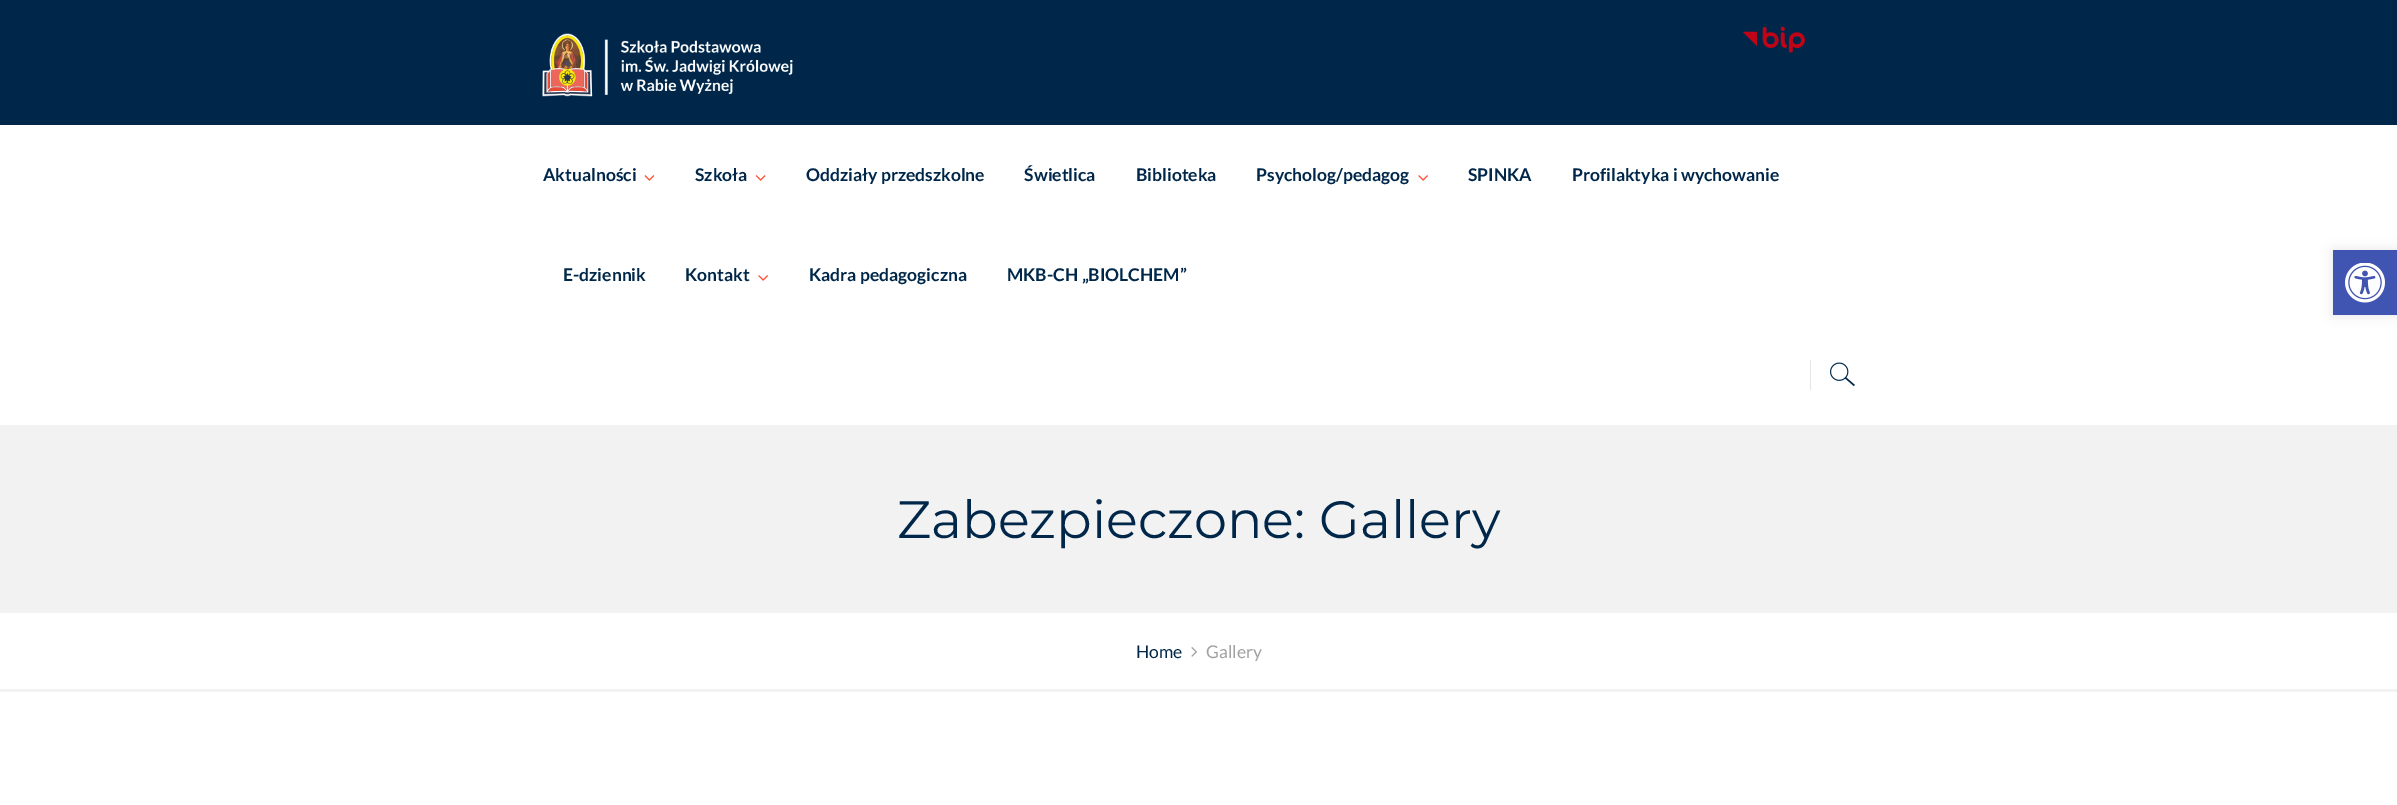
%!PS
<< /PageSize [2397 805] /PageUsesTransparency true >> setpagedevice
/C { dup -16 bitshift 255 div exch dup -8 bitshift 255 and 255 div exch 255 and 255 div setrgbcolor } def
/F { [ exch dup neg 0 0 3 -1 roll 0 0 ] selectfont } def
/T { moveto show } def
/R { rectfill } def
/A { dup .setfillconstantalpha .setstrokeconstantalpha } def
/Q { 5 dict begin { /r /h /w /y /x } { exch def } forall
  x r add y moveto x w add y 2 copy h add r arct x w add y h add x 1 index r arct
  x y h add x y r arct x y 2 copy exch w add exch r arct closepath end } def
/S { 12 dict begin { /a /b /q /h /w /y /x } { exch def } forall gsave /was 0 def
  9 -2 -9 { dup b mul 4 div /e exch def 1 sub .425 mul 2.718 exch exp 1 add a .99 .min exch div /now exch def
    1 1 now sub 1 was sub div sub A /was now def
    w h .min e 2 mul add 0 gt { x e sub y e sub w e 2 mul add h e 2 mul add
      q e add b .6 mul add w h .min 2 div e add .min 0 .max Q fill } if } for grestore end } def
/I { 5 dict begin { /h /w /y /x /name } { exch def } forall
  gsave x y translate w h scale
  w h 8 [w 0 0 h 0 0] name (r) file false 3 colorimage grestore end } def
0 .pushpdf14devicefilter
0 805 translate 1 -1 scale
4 setmiterlimit
16#FFFFFF C
0 0 2397 805 R
16#002749 C
0 0 2397 125 R
(1.rgb) 542 33 251 64 I
(2.rgb) 1743 26 62 27 I
/Lato-Bold 17.5 F
(Aktualności) 543 181 T
(3.rgb) 644 175 11 6 I
(Szkoła) 695 181 T
(4.rgb) 755 175 11 6 I
(Oddziały przedszkolne) 806 181 T
(Świetlica) 1024 181 T
(Biblioteka) 1136 181 T
(Psycholog/pedagog) 1256 181 T
(5.rgb) 1418 175 10 6 I
(SPINKA) 1468 181 T
(Profilaktyka i wychowanie) 1572 181 T
(E-dziennik) 563 281 T
(Kontakt) 685 281 T
(5.rgb) 758 275 10 6 I
(Kadra pedagogiczna) 809 281 T
(MKB-CH „BIOLCHEM”) 1007 281 T
16#E5E5E5 C
1810 360 1 30 R
(6.rgb) 1830 362 25 25 I
16#F2F2F2 C
0 425 2397 188 R
/Montserrat-Regular 52.5 F
16#002749 C
(Zabezpieczone: Gallery) 897 538 T
16#F2F2F2 C
0 689 2397 3 R
/Lato-Regular 17.5 F
16#002749 C
(Home) 1136 658 T
(7.rgb) 1191 647 6 10 I
16#A0A0A0 C
(Gallery) 1206 658 T
16#000000 C
2333 250 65 65 0 6 .1 S
16#4054B2 C
2333 250 64 65 R
(8.rgb) 2345 263 40 40 I
.poppdf14devicefilter showpage
